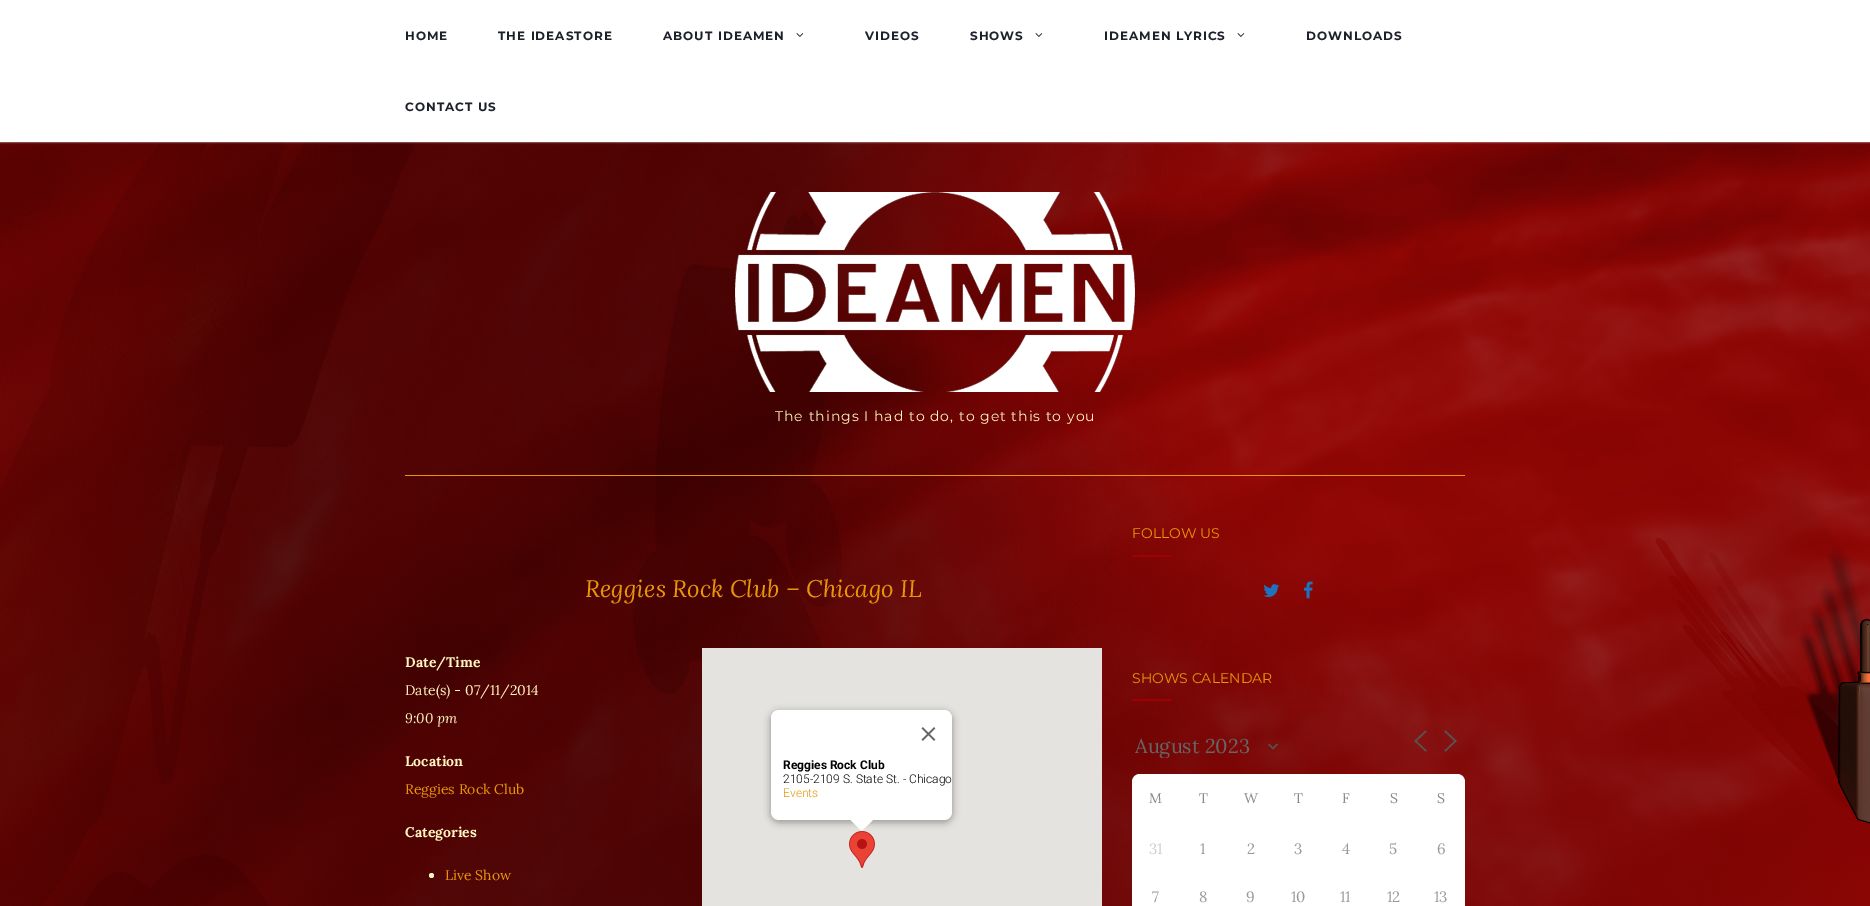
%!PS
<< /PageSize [1870 906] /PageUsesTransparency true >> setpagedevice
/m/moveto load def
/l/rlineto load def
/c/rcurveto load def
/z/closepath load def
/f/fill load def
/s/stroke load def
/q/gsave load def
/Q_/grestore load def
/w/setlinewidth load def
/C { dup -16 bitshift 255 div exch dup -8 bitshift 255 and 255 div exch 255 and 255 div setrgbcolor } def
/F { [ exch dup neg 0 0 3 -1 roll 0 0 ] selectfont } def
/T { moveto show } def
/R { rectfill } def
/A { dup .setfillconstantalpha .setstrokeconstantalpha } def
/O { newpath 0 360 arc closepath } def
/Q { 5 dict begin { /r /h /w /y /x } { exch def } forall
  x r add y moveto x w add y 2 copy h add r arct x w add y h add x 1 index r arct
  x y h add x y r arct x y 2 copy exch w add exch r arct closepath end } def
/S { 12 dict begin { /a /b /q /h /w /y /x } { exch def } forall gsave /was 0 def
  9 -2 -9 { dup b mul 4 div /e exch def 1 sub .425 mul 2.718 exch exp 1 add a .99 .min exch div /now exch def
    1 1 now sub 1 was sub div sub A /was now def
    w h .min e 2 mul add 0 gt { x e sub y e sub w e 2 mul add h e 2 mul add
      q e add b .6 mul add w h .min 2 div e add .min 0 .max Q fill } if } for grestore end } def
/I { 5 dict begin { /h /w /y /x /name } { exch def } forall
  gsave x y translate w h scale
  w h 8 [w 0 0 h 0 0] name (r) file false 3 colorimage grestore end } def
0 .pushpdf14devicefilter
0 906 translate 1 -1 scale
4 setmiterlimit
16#FFFFFF C
0 0 1870 906 R
(1.rgb) 0 142 1870 764 I
16#E3E3E3 C
0 0 1870 142 0 1 1 S
16#FFFFFF C
0 0 1870 142 R
/Montserrat-Bold 12 F
16#1C202A C
405 40 m 1 0 (HOME) ashow
498 40 m 1 0 (THE IDEASTORE) ashow
663 40 m 1 0 (ABOUT IDEAMEN) ashow
(2.rgb) 796 33 8 4 I
865 40 m 1 0 (VIDEOS) ashow
970 40 m 1 0 (SHOWS) ashow
(2.rgb) 1035 33 8 4 I
1104 40 m 1 0 (IDEAMEN LYRICS) ashow
(2.rgb) 1237 33 8 4 I
1306 40 m 1 0 (DOWNLOADS) ashow
405 111 m 1 0 (CONTACT US) ashow
(3.rgb) 735 192 400 200 I
/Montserrat-Regular 14 F
16#FFF5BE C
775 421 m 1 0 (The things I had to do, to get this to you) ashow
16#E89608 C
405 475 1060 1 R
/Lora-Italic 24 F
(Reggies Rock Club – Chicago IL) 585 597 T
/Lora-Bold 14 F
16#FFF5BE C
(Date/Time) 405 667 T
/Lora-Regular 14 F
(Date\(s\) - 07/11/2014) 405 695 T
/Lora-Italic 14 F
(9:00 pm) 405 723 T
/Lora-Bold 14 F
(Location) 405 766 T
/Lora-Regular 14 F
16#E89608 C
(Reggies Rock Club) 405 794 T
16#E5E3DF C
702 648 400 258 R
(5.rgb) 849 831 26 37 I
16#000000 C
770 711 183 112 9 3.5 .3 S
16#FFFFFF C
771 710 181 110 8 Q f
(4.rgb) 921 727 15 14 I
/Roboto-Bold 12 F
16#000000 C
(Reggies Rock Club) 783 769 T
/Roboto-Light 12 F
(2105-2109 S. State St. - Chicago) 783 783 T
16#E89608 C
(Events) 783 797 T
16#FFFFFF C
850 819 m 0 .5 l 11.5 11.5 l 12.5 -12 l z f
/Lora-Bold 14 F
16#FFF5BE C
(Categories) 405 837 T
431.5 875.5 2.5 O f
/Lora-Regular 14 F
16#E89608 C
(Live Show) 445 880 T
/Montserrat-Regular 14 F
(FOLLOW US) 1132 538 T
16#A00005 C
1132 555 40 2 R
(6.rgb) 1263 584 17 13 I
(7.rgb) 1303 581 10 18 I
16#E89608 C
(SHOWS CALENDAR) 1132 683 T
16#A00005 C
1132 699 40 2 R
16#555555 C
1.3 w
2 setlinecap
1269 744.5 m 4 4 l 4 -4 l s
q
1135 733 143 25 rectclip
/Lora-Regular 20 F
16#666666 C
(August 2023) 1135 753 T
Q_
1.5 w
1425.5 750.5 m -10 -9.5 l 10 -9.5 l 1445.5 750.5 m 10 -9.5 l -10 -9.5 l s
16#FFFFFF C
1140 774 m 317 0 l 4.5 0 8 3.5 8 8 c 0 40 l -333 0 l 0 -40 l 0 -4.5 3.5 -8 8 -8 c z f
/Lora-Regular 14 F
16#888888 C
(M) 1149 803 T
(T) 1199 803 T
(W) 1244 803 T
(T) 1294 803 T
(F) 1342 803 T
(S) 1390 803 T
(S) 1437 803 T
16#FFFFFF C
1132 822 333 84 R
/Lora-Regular 15 F
16#CCCCCC C
(31) 1149 854 T
16#999999 C
(1) 1200 854 T
(2) 1247 854 T
(3) 1294 854 T
(4) 1342 854 T
(5) 1389 854 T
(6) 1437 854 T
(7) 1152 902 T
(8) 1199 902 T
(9) 1246 902 T
(10) 1291 902 T
(11) 1340 902 T
(12) 1387 902 T
(13) 1434 902 T
.poppdf14devicefilter showpage
